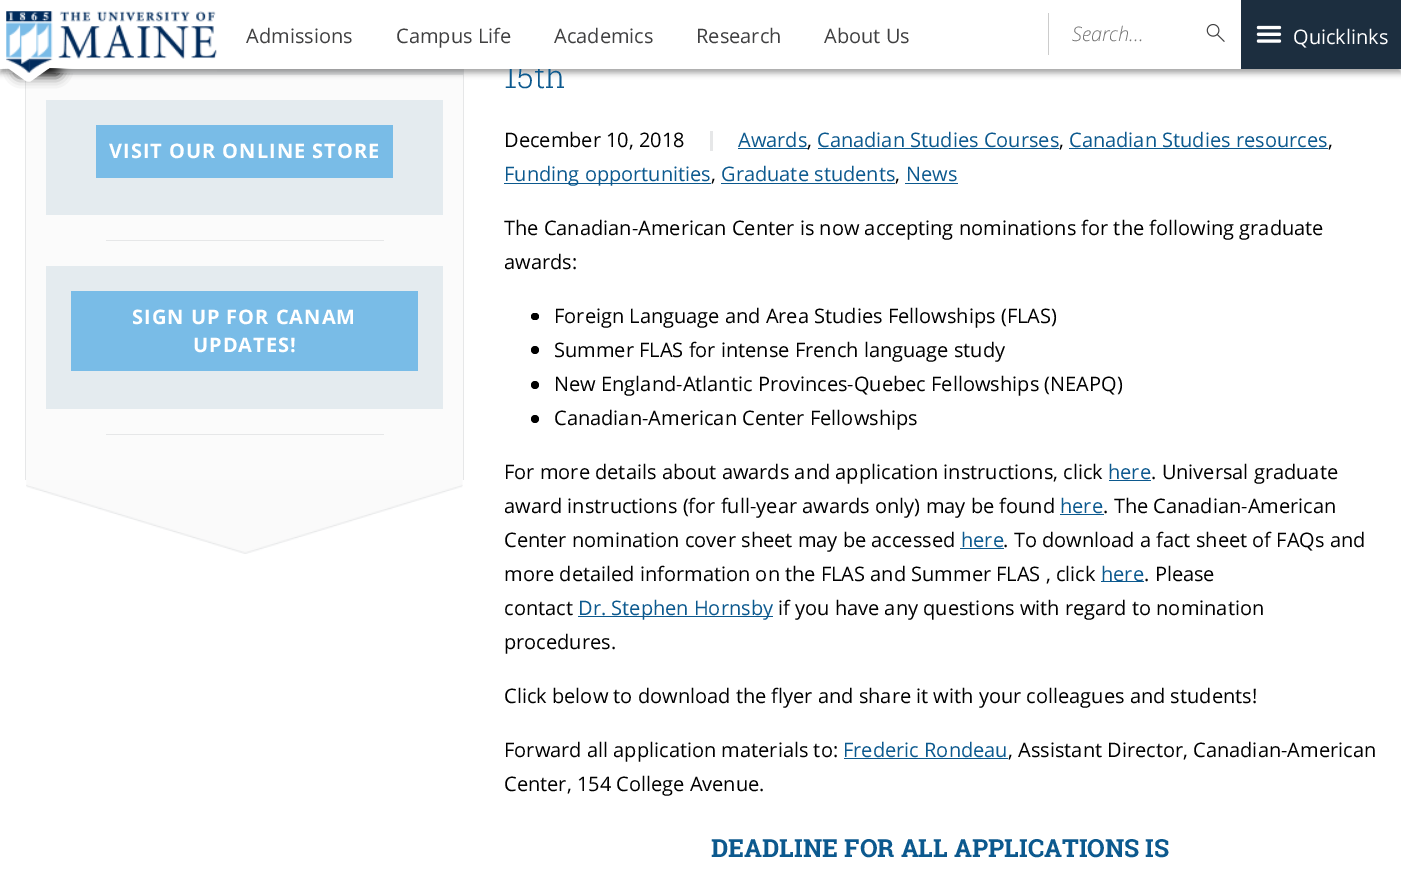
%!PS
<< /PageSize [1401 871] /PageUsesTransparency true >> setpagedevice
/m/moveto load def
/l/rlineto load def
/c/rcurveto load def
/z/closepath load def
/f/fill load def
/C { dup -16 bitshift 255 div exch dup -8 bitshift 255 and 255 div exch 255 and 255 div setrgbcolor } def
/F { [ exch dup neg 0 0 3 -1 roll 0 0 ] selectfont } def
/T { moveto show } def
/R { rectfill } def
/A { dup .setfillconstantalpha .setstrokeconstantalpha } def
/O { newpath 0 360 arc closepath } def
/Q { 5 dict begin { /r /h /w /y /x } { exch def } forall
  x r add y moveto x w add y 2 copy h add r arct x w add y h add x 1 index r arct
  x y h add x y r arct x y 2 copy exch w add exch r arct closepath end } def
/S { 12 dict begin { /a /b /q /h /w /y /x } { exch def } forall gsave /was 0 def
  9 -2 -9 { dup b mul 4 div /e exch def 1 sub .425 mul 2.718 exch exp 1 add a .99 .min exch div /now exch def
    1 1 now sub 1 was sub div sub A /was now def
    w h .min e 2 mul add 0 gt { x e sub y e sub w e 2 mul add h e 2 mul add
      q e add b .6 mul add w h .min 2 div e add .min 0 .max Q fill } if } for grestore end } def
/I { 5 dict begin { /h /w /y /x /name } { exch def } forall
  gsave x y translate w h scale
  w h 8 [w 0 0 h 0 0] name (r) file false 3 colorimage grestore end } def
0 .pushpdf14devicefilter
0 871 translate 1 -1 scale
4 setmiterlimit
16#FFFFFF C
0 0 1401 871 R
16#FBFBFB C
26 75 437 405 R
16#E6E7E8 C
463 69 1 411 R
25 80 1 400 R
39 69 424 6 R
16#000000 C
0 4 1401 69 0 3 .35 S
/RobotoSlab-Light 32 F
16#0C598E C
(15th) 504 88 T
16#FFFFFF C
0 0 1241 69 R
16#000000 C
16 50 44 25 2.5 6 1 S
16#FFFFFF C
9 66 m 32 -22 l 1 -1 3 -1 4 0 c 17 12 l 1 1 2 2 0 3 c -31 22 l -1 1 -3 1 -5 0 c -17 -12 l -1 -1 -1 -2 0 -3 c z f
2 36 72 32 R
(1.rgb) 6 11 211 62 I
/OpenSans-Regular 20 F
16#404041 C
(Admissions) 246 43 T
(Campus Life) 396 43 T
(Academics) 554 43 T
(Research) 696 43 T
(About Us) 824 43 T
16#CCCCCC C
1048 13 1 42 R
/OpenSans-LightItalic 20 F
16#757575 C
(Search...) 1072 41 T
(2.rgb) 1206 23 19 19 I
16#1C2E3F C
1241 0 160 69 R
(3.rgb) 1256 25 26 18 I
/OpenSans-Regular 20 F
16#FFFFFF C
(Quicklinks) 1293 44 T
16#E4EBEF C
46 100 397 115 R
16#79BCE7 C
96 125 297 53 R
/OpenSans-Bold 20 F
16#FFFFFF C
109 158 m 1 0 (VISIT OUR ONLINE STORE) ashow
16#E6E7E8 C
106 240 278 1 R
16#E4EBEF C
46 266 397 143 R
16#79BCE7 C
71 291 347 80 R
16#FFFFFF C
132 324 m 1 0 (SIGN UP FOR CANAM) ashow
193 352 m 1 0 (UPDATES!) ashow
16#E6E7E8 C
106 434 278 1 R
(4.rgb) 26 480 437 74 I
/OpenSans-Regular 20 F
16#000000 C
(December 10, 2018) 504 147 T
16#E6E7E8 C
710 131 3 20 R
16#0C598E C
(Awards) 738 147 T
738 148 70 1 R
16#000000 C
(,) 807 147 T
16#0C598E C
(Canadian Studies Courses) 817 147 T
16#000000 C
(,) 1059 147 T
16#0C598E C
818 148 241 1 R
(Canadian Studies resources) 1069 147 T
16#000000 C
(,) 1328 147 T
16#0C598E C
1069 148 259 1 R
504 183 207 1 R
(Funding opportunities) 504 181 T
16#000000 C
(,) 711 181 T
16#0C598E C
(Graduate students) 721 181 T
16#000000 C
(,) 895 181 T
16#0C598E C
721 183 174 1 R
905 183 53 1 R
(News) 906 181 T
16#000000 C
(The Canadian-American Center is now accepting nominations for the following graduate) 504 235 T
(awards:) 504 269 T
531 313 8 7 3.5 Q f
(Foreign Language and Area Studies Fellowships \(FLAS\)) 554 323 T
535 350 4 O f
(Summer FLAS for intense French language study) 554 357 T
535 385 4 O f
(New England-Atlantic Provinces-Quebec Fellowships \(NEAPQ\)) 554 391 T
535 419 4 O f
(Canadian-American Center Fellowships) 554 425 T
(For more details about awards and application instructions, click) 504 479 T
16#0C598E C
(here) 1108 479 T
1109 480 42 1 R
16#000000 C
(. Universal graduate) 1151 479 T
(award instructions \(for full-year awards only\) may be found) 504 513 T
16#0C598E C
(here) 1060 513 T
1060 514 44 1 R
16#000000 C
(. The Canadian-American) 1103 513 T
(Center nomination cover sheet may be accessed) 504 547 T
16#0C598E C
(here) 961 547 T
960 548 44 1 R
16#000000 C
(. To download a fact sheet of FAQs and) 1003 547 T
(more detailed information on the FLAS and Summer FLAS , click) 504 581 T
16#0C598E C
1101 581 43 1 R
(here) 1101 581 T
16#000000 C
(. Please) 1144 581 T
(contact) 504 615 T
16#0C598E C
578 616 195 1 R
(Dr. Stephen Hornsby) 578 615 T
16#000000 C
(if you have any questions with regard to nomination) 778 615 T
(procedures.) 504 649 T
(Click below to download the flyer and share it with your colleagues and students!) 504 703 T
(Forward all application materials to:) 504 757 T
16#0C598E C
(Frederic Rondeau) 843 757 T
844 758 164 1 R
16#000000 C
(, Assistant Director, Canadian-American) 1008 757 T
(Center, 154 College Avenue.) 504 791 T
/RobotoSlab-Bold 25 F
16#0C598E C
(DEADLINE FOR ALL APPLICATIONS IS) 711 857 T
.poppdf14devicefilter showpage
